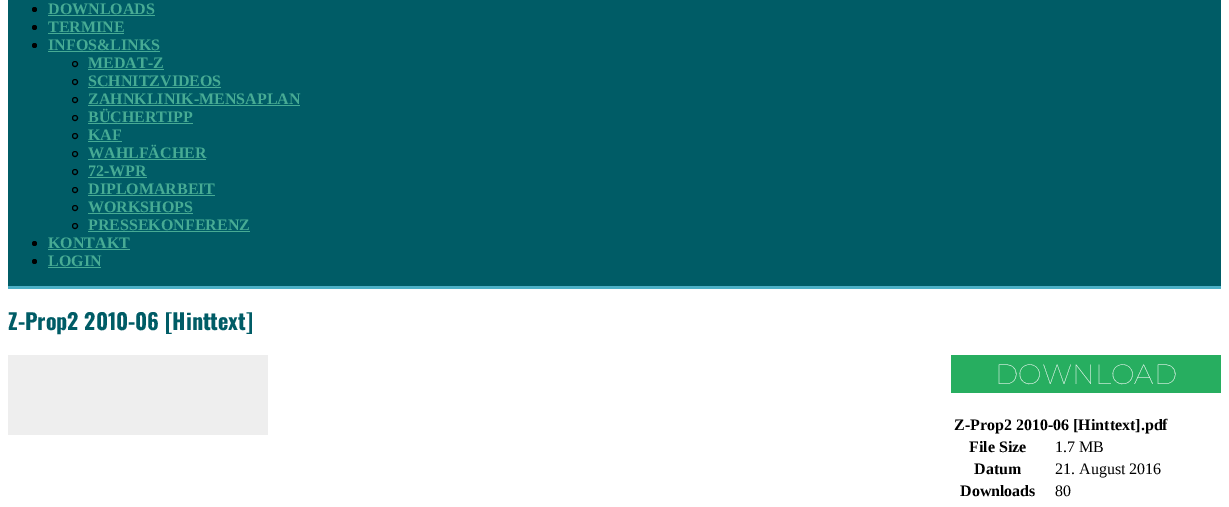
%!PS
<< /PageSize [1229 507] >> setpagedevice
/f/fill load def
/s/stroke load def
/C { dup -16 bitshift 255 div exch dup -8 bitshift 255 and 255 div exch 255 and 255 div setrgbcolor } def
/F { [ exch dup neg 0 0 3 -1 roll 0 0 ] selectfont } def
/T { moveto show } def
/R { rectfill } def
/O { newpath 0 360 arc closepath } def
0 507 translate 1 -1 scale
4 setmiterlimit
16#FFFFFF C
0 0 1229 507 R
16#005C66 C
8 0 1213 286 R
16#4CB0C6 C
8 286 1213 3 R
16#000000 C
34.5 9.5 2.5 O f
/LiberationSerif-Bold 16 F
16#47AB94 C
(DOWNLOADS) 48 14 T
48 15 107 1 R
16#000000 C
34.5 27.5 2.5 O f
16#47AB94 C
(TERMINE) 48 32 T
48 33 76 1 R
16#000000 C
34.5 45.5 2.5 O f
16#47AB94 C
(INFOS&LINKS) 48 50 T
48 51 112 1 R
16#000000 C
75 64 2.5 O s
16#47AB94 C
(MEDAT-Z) 88 68 T
88 69 76 1 R
16#000000 C
75 82 2.5 O s
16#47AB94 C
(SCHNITZVIDEOS) 88 86 T
88 87 133 1 R
16#000000 C
75 100 2.5 O s
16#47AB94 C
(ZAHNKLINIK-MENSAPLAN) 88 104 T
88 105 212 1 R
16#000000 C
75 118 2.5 O s
16#47AB94 C
(BÜCHERTIPP) 88 122 T
88 123 105 1 R
16#000000 C
75 136 2.5 O s
16#47AB94 C
(KAF) 88 140 T
88 141 34 1 R
16#000000 C
75 154 2.5 O s
16#47AB94 C
(WAHLFÄCHER) 88 158 T
88 159 118 1 R
16#000000 C
75 172 2.5 O s
16#47AB94 C
(72-WPR) 88 176 T
88 177 59 1 R
16#000000 C
75 190 2.5 O s
16#47AB94 C
(DIPLOMARBEIT) 88 194 T
88 195 127 1 R
16#000000 C
75 208 2.5 O s
16#47AB94 C
(WORKSHOPS) 88 212 T
88 213 105 1 R
16#000000 C
75 226 2.5 O s
16#47AB94 C
(PRESSEKONFERENZ) 88 230 T
88 231 162 1 R
16#000000 C
34.5 243.5 2.5 O f
16#47AB94 C
(KONTAKT) 48 248 T
48 249 82 1 R
16#000000 C
34.5 261.5 2.5 O f
16#47AB94 C
(LOGIN) 48 266 T
48 267 53 1 R
/Oswald-Bold 22 F
16#005C66 C
(Z-Prop2 2010-06 [Hinttext]) 8 330 T
16#EEEEEE C
8 355 260 80 R
16#27AE60 C
951 355 270 38 R
/Montserrat-Thin 28 F
16#FFFFFF C
(DOWNLOAD) 995 384 T
/LiberationSerif-Bold 16 F
16#000000 C
(Z-Prop2 2010-06 [Hinttext].pdf) 954 430 T
(File Size) 969 452 T
/LiberationSerif-Regular 16 F
(1.7 MB) 1055 452 T
/LiberationSerif-Bold 16 F
(Datum) 974 474 T
/LiberationSerif-Regular 16 F
(21. August 2016) 1055 474 T
/LiberationSerif-Bold 16 F
(Downloads) 960 496 T
/LiberationSerif-Regular 16 F
(80) 1055 496 T
showpage
